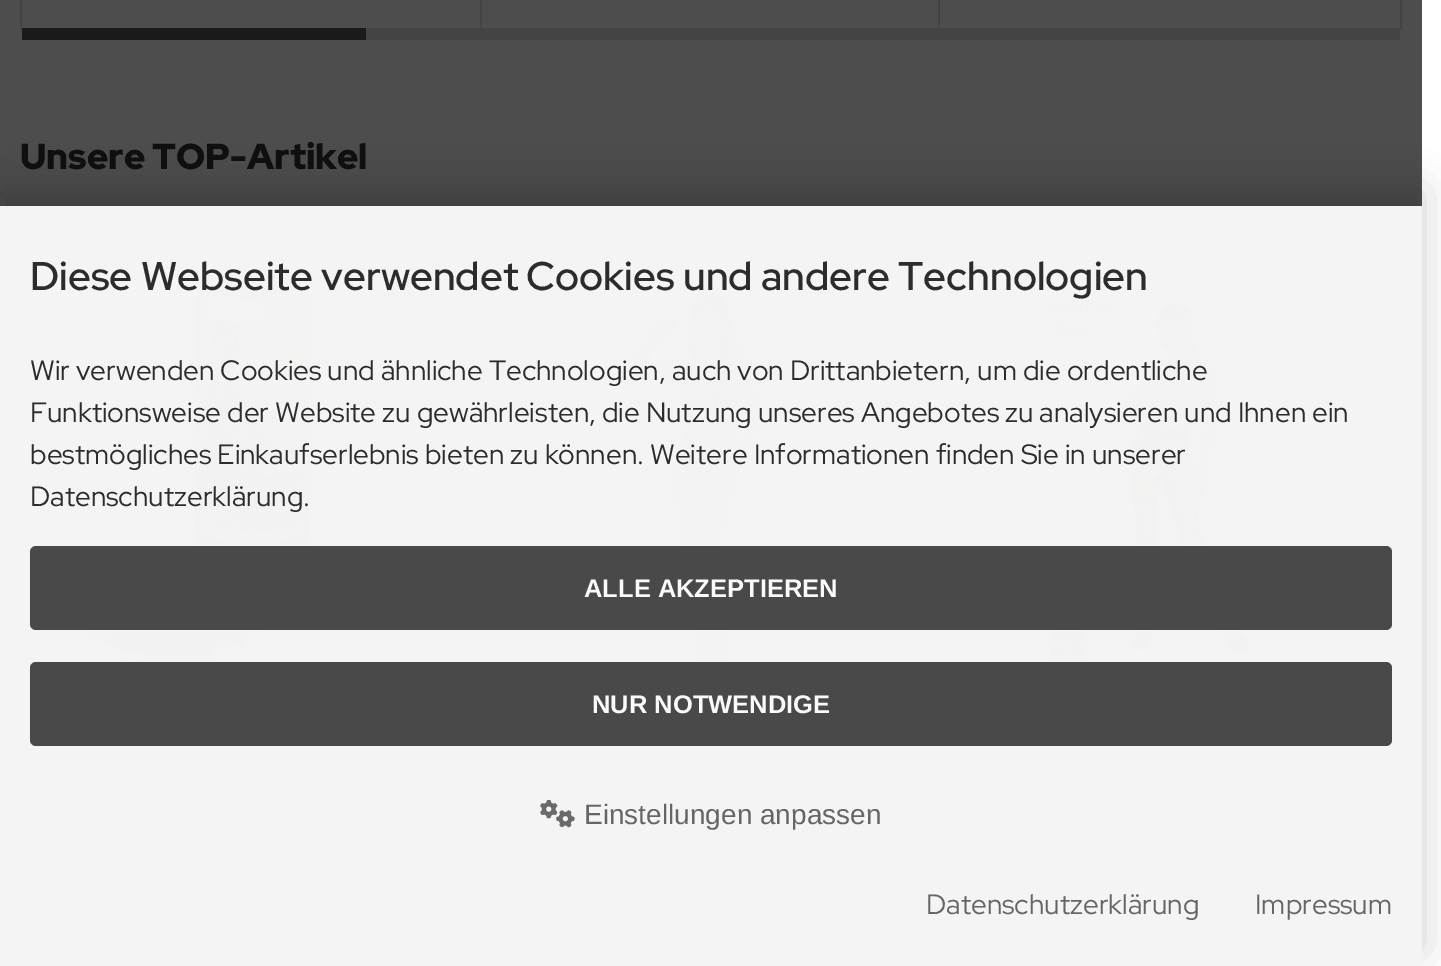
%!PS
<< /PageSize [1441 966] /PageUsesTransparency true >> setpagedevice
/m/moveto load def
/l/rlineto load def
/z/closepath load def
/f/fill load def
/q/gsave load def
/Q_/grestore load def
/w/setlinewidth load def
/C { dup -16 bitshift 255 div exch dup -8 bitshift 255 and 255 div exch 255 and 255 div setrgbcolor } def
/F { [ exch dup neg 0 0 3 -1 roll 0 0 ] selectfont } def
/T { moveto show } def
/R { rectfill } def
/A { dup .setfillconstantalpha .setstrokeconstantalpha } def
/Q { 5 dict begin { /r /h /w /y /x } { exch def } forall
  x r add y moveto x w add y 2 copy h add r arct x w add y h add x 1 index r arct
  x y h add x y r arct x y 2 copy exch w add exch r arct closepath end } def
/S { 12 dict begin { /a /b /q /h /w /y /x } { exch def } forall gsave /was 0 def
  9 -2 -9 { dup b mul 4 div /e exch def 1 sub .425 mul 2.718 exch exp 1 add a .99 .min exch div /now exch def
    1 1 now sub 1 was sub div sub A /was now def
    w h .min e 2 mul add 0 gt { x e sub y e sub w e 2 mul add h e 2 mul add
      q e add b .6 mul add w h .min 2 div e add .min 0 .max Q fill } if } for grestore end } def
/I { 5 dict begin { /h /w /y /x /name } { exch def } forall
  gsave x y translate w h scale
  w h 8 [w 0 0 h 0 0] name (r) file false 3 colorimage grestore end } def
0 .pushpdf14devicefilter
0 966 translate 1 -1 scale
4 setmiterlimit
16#FFFFFF C
0 0 1441 966 R
16#4D4D4D C
0 0 1422 206 R
16#F4F4F4 C
0 206 1422 760 R
16#444444 C
2 w
21 -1 1380 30 rectstroke
480 0 2 28 R
938 0 2 28 R
16#1A1A1A C
22 28 344 12 R
16#444444 C
366 30 1034 10 R
/RedHatDisplay-Black 36 F
16#0F0F0F C
(Unsere TOP-Artikel) 20 169 T
(1.rgb) 84 288 228 374 I
(2.rgb) 623 292 143 370 I
(3.rgb) 1047 288 203 374 I
q
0 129 m 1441 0 l 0 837 l -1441 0 l z 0 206 m 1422 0 l 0 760 l -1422 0 l z eoclip newpath
16#000000 C
0 190 1422 760 0 20 .19 S
Q_
/RedHatDisplay-SemiBold 40 F
16#2C2C2C C
(Diese Webseite verwendet Cookies und andere Technologien) 30 290 T
/RedHatDisplay-Regular 28 F
(Wir verwenden Cookies und ähnliche Technologien, auch von Drittanbietern, um die ordentliche) 30 380 T
(Funktionsweise der Website zu gewährleisten, die Nutzung unseres Angebotes zu analysieren und Ihnen ein) 30 422 T
(bestmögliches Einkaufserlebnis bieten zu können. Weitere Informationen finden Sie in unserer) 30 464 T
(Datenschutzerklärung.) 30 506 T
16#494949 C
30 546 1362 84 6 Q f
/LiberationSans-Bold 25.5 F
16#FAFAFA C
(ALLE AKZEPTIEREN) 584 597 T
16#494949 C
30 662 1362 84 6 Q f
16#FAFAFA C
(NUR NOTWENDIGE) 592 713 T
(4.rgb) 540 799 35 29 I
/LiberationSans-Regular 28 F
16#656565 C
(Einstellungen anpassen) 584 824 T
/RedHatDisplay-Regular 28 F
(Datenschutzerklärung) 926 914 T
(Impressum) 1255 914 T
.poppdf14devicefilter showpage
